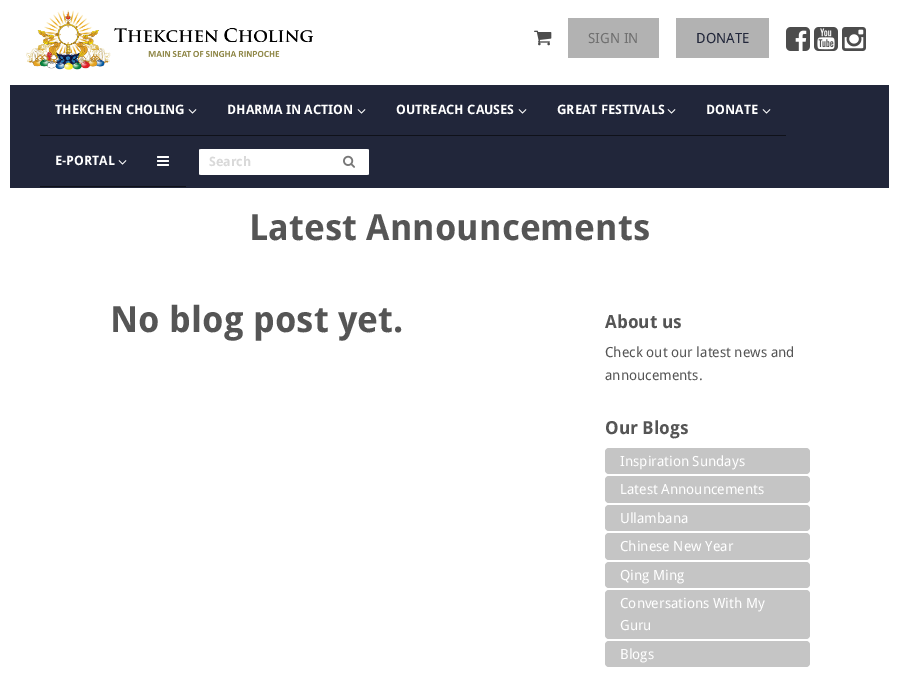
%!PS
<< /PageSize [899 699] >> setpagedevice
/m/moveto load def
/l/rlineto load def
/c/rcurveto load def
/z/closepath load def
/f/fill load def
/C { dup -16 bitshift 255 div exch dup -8 bitshift 255 and 255 div exch 255 and 255 div setrgbcolor } def
/F { [ exch dup neg 0 0 3 -1 roll 0 0 ] selectfont } def
/T { moveto show } def
/R { rectfill } def
/Q { 5 dict begin { /r /h /w /y /x } { exch def } forall
  x r add y moveto x w add y 2 copy h add r arct x w add y h add x 1 index r arct
  x y h add x y r arct x y 2 copy exch w add exch r arct closepath end } def
/I { 5 dict begin { /h /w /y /x /name } { exch def } forall
  gsave x y translate w h scale
  w h 8 [w 0 0 h 0 0] name (r) file false 3 colorimage grestore end } def
0 699 translate 1 -1 scale
4 setmiterlimit
16#FFFFFF C
0 0 899 699 R
(1.rgb) 26 10 288 60 I
(2.rgb) 534 30 18 16 I
16#B2B2B2 C
568 18 91 40 R
/DroidSans-Regular 14 F
16#707070 C
(SIGN IN) 588 43 T
16#B2B2B2 C
676 18 93 40 R
16#21263A C
(DONATE) 696 43 T
(3.rgb) 786 27 24 24 I
(4.rgb) 814 27 24 24 I
(5.rgb) 842 27 24 24 I
10 85 879 103 R
16#0F1119 C
40 135 746 1 R
/DroidSans-Bold 13 F
16#FFFFFF C
(THEKCHEN CHOLING) 55 114 T
(6.rgb) 188 109 9 5 I
(DHARMA IN ACTION) 227 114 T
(6.rgb) 357 109 9 5 I
(OUTREACH CAUSES) 396 114 T
(6.rgb) 518 109 9 5 I
(GREAT FESTIVALS) 557 114 T
(6.rgb) 667 109 9 5 I
(DONATE) 706 114 T
(6.rgb) 762 109 9 5 I
16#0F1119 C
40 186 146 1 R
16#FFFFFF C
(E-PORTAL) 55 165 T
(6.rgb) 118 160 9 5 I
(7.rgb) 157 156 12 10 I
206 149 m 156 0 l 4 0 7 0 7 1 c 0 24 l 0 1 -3 1 -7 1 c -156 0 l -4 0 -7 0 -7 -1 c 0 -24 l 0 -1 3 -1 7 -1 c z f
16#D9D9D9 C
(Search) 209 166 T
(8.rgb) 343 155 12 13 I
/DroidSans-Bold 36 F
16#555555 C
(Latest Announcements) 249 240 T
(No blog post yet.) 110 332 T
/DroidSans-Bold 18 F
(About us) 605 328 T
/DroidSans-Regular 14 F
(Check out our latest news and) 605 357 T
(annoucements.) 605 380 T
/DroidSans-Bold 18 F
(Our Blogs) 605 434 T
16#C5C5C5 C
605 448 205 26 4 Q f
/DroidSans-Regular 14 F
16#FFFFFF C
(Inspiration Sundays) 620 466 T
16#C5C5C5 C
605 476 205 27 4 Q f
16#FFFFFF C
(Latest Announcements) 620 494 T
16#C5C5C5 C
605 505 205 26 4 Q f
16#FFFFFF C
(Ullambana) 620 523 T
16#C5C5C5 C
605 533 205 27 4 Q f
16#FFFFFF C
(Chinese New Year) 620 551 T
16#C5C5C5 C
605 562 205 26 4 Q f
16#FFFFFF C
(Qing Ming) 620 580 T
16#C5C5C5 C
605 590 205 49 4 Q f
16#FFFFFF C
(Conversations With My) 620 608 T
(Guru) 620 630 T
16#C5C5C5 C
605 641 205 26 4 Q f
16#FFFFFF C
(Blogs) 620 659 T
showpage
